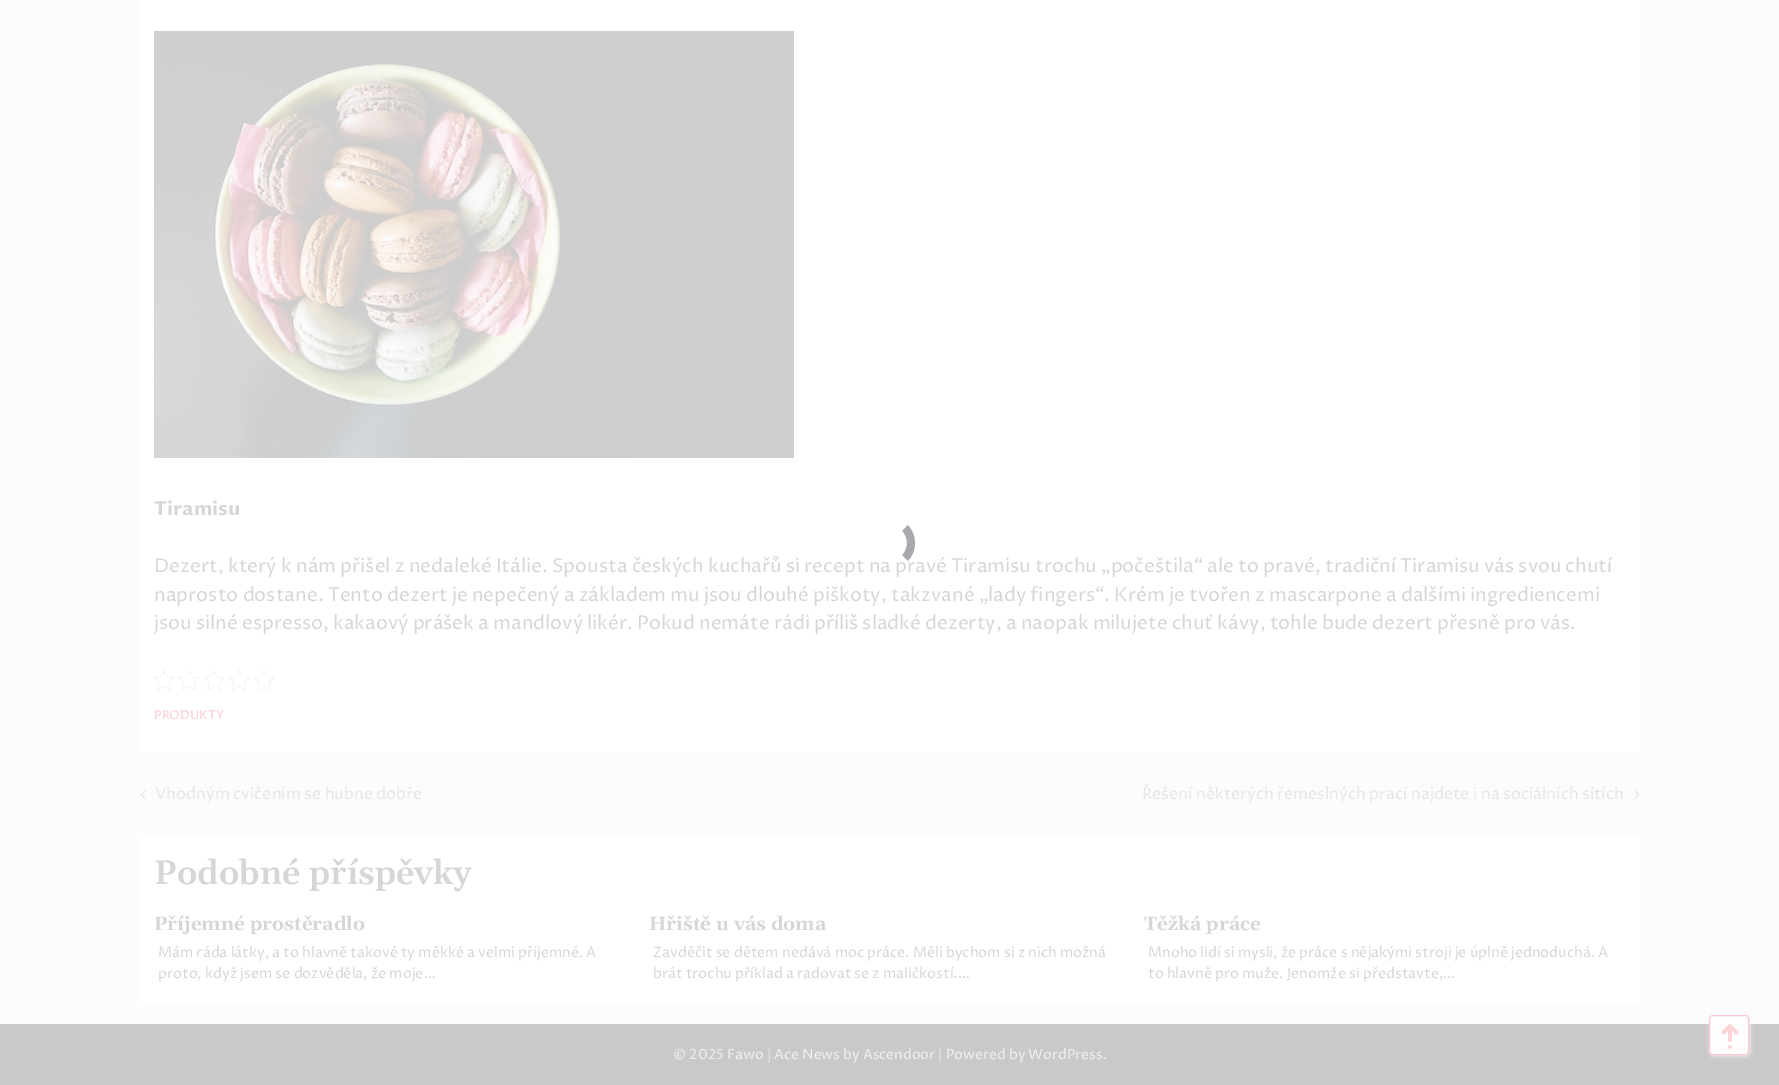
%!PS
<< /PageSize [1779 1085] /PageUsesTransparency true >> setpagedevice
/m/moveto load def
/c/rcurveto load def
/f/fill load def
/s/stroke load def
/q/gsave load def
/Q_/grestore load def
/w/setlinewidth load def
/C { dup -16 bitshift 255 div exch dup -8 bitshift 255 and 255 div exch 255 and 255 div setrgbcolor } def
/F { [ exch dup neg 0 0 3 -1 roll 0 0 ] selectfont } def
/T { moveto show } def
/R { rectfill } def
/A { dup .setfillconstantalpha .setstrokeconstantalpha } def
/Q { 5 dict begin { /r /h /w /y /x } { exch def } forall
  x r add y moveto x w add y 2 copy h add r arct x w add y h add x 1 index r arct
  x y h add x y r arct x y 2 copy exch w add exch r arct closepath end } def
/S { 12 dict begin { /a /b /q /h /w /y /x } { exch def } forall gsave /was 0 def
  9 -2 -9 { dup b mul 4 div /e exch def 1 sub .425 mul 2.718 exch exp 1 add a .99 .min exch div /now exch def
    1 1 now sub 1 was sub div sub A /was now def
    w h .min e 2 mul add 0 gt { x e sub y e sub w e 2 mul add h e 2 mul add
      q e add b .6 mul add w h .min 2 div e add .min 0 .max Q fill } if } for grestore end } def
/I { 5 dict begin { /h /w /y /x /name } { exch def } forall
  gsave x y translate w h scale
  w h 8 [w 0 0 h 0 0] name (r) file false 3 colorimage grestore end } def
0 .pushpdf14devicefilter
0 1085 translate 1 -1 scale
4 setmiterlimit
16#FCFCFD C
0 0 1779 1085 R
16#FFFFFF C
140 -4 1500 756 4 Q f
(1.rgb) 154 31 640 427 I
/ProzaLibre-Bold 19.05 F
16#D5D6D8 C
(Tiramisu) 154 515 T
/ProzaLibre-Regular 19.05 F
(Dezert, který k nám přišel z nedaleké Itálie. Spousta českých kuchařů si recept na pravé Tiramisu trochu „počeštila“ ale to pravé, tradiční Tiramisu vás svou chutí) 154 572 T
(naprosto dostane. Tento dezert je nepečený a základem mu jsou dlouhé piškoty, takzvané „lady fingers“. Krém je tvořen z mascarpone a dalšími ingrediencemi) 154 601 T
(jsou silné espresso, kakaový prášek a mandlový likér. Pokud nemáte rádi příliš sladké dezerty, a naopak milujete chuť kávy, tohle bude dezert přesně pro vás.) 154 629 T
(2.rgb) 154 670 20 20 I
(2.rgb) 179 670 20 20 I
(2.rgb) 204 670 20 20 I
(2.rgb) 229 670 20 20 I
(2.rgb) 254 670 20 20 I
/ProzaLibre-Regular 12.25 F
16#FCC9CE C
(PRODUKTY) 154 719 T
(3.rgb) 140 790 6 10 I
/ProzaLibre-Regular 16 F
16#E4E5E6 C
(Vhodným cvičením se hubne dobře) 155 799 T
(Řešení některých řemeslných prací najdete i na sociálních sítích) 1142 799 T
(4.rgb) 1634 790 6 10 I
16#FFFFFF C
140 836 1500 168 4 Q f
/Gelasio-SemiBold 33.75 F
16#D5D6D8 C
(Podobné příspěvky) 154 884 T
/Gelasio-Bold 19.05 F
(Příjemné prostěradlo) 154 930 T
/ProzaLibre-Regular 14.25 F
(Mám ráda látky, a to hlavně takové ty měkké a velmi příjemné. A) 158 957 T
(proto, když jsem se dozvěděla, že moje…) 158 978 T
/Gelasio-Bold 19.05 F
(Hřiště u vás doma) 649 930 T
/ProzaLibre-Regular 14.25 F
(Zavděčit se dětem nedává moc práce. Měli bychom si z nich možná) 653 957 T
(brát trochu příklad a radovat se z maličkostí.…) 653 978 T
/Gelasio-Bold 19.05 F
(Těžká práce) 1144 930 T
/ProzaLibre-Regular 14.25 F
(Mnoho lidí si myslí, že práce s nějakými stroji je úplně jednoduchá. A) 1148 957 T
(to hlavně pro muže. Jenomže si představte,…) 1148 978 T
16#A7A9AD C
8 w
905 528 m 8 8 8 22 0 30 c 905 528 m 8 8 8 22 0 30 c 905 528 m 8 8 8 22 0 30 c s
16#C9C9C9 C
0 1024 1779 61 R
/ProzaLibre-Regular 14 F
16#F1F1F1 C
(© 2025 Fawo | Ace News by Ascendoor | Powered by WordPress.) 673 1059 T
16#F5F5F5 C
1710 1016 40 40 4 2 1 S
16#FEFEFE C
1709.5 1015.5 39 39 3.5 Q q f Q_
16#FCC9CE C
1 w
s
(5.rgb) 1721 1024 18 25 I
.poppdf14devicefilter showpage
